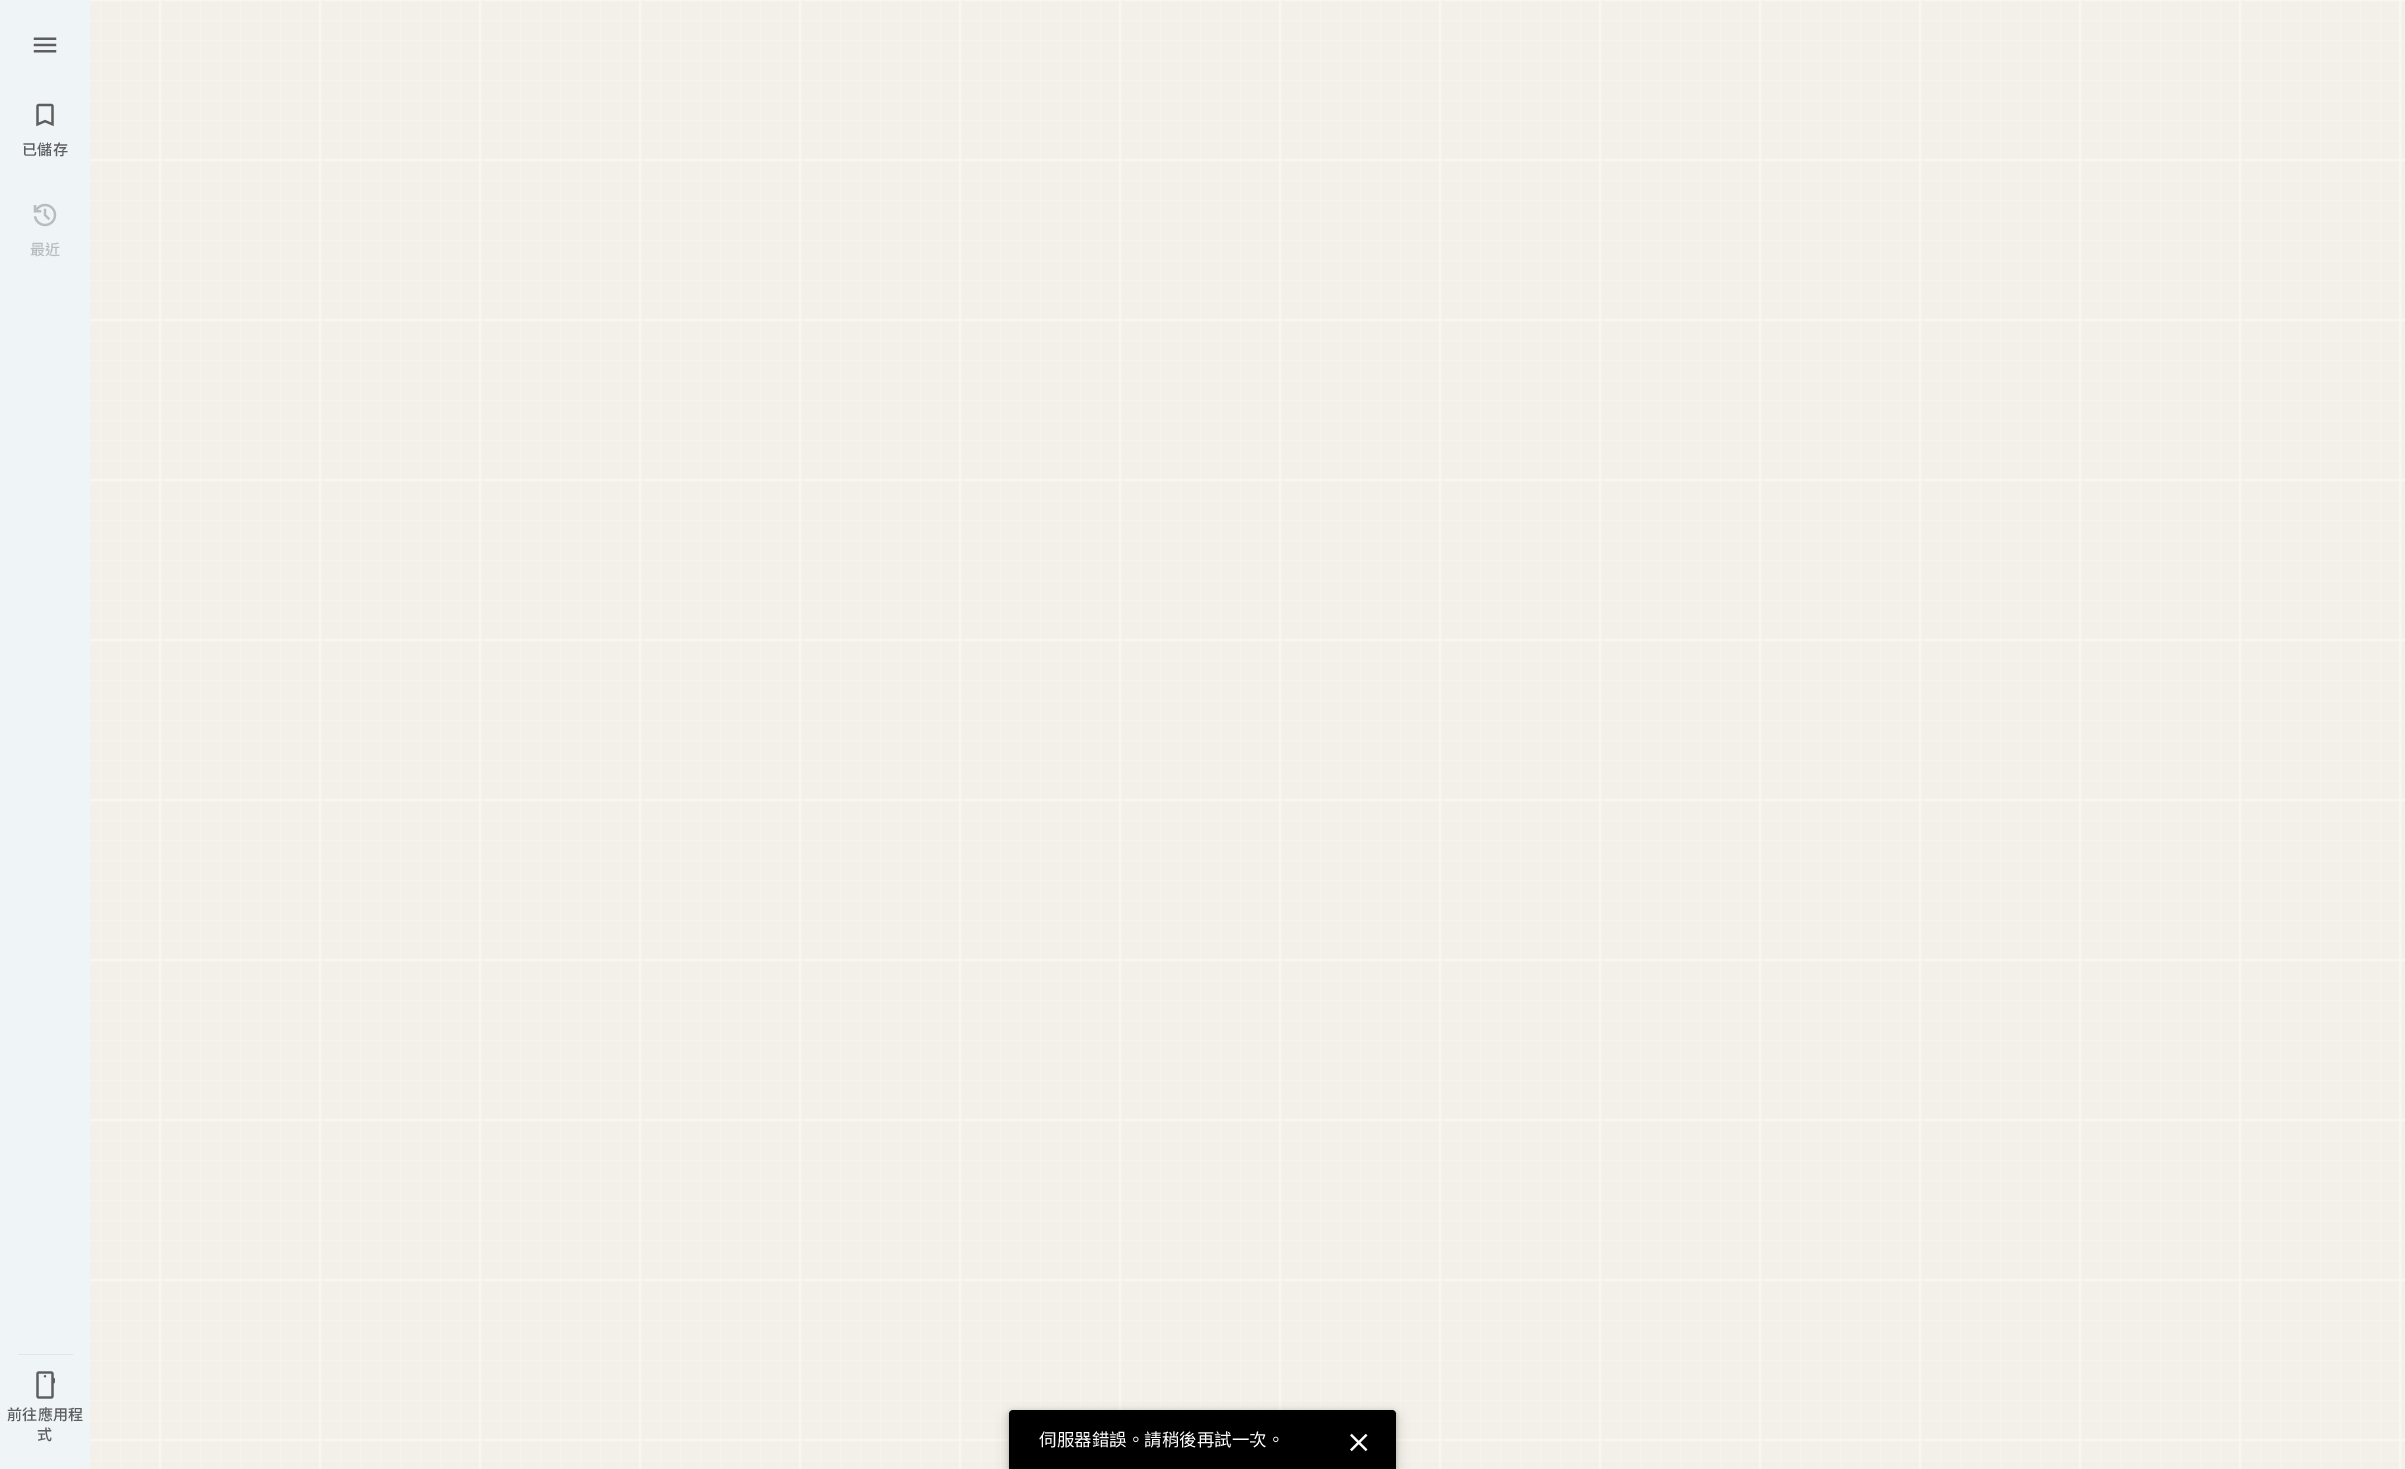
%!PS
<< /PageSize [2405 1469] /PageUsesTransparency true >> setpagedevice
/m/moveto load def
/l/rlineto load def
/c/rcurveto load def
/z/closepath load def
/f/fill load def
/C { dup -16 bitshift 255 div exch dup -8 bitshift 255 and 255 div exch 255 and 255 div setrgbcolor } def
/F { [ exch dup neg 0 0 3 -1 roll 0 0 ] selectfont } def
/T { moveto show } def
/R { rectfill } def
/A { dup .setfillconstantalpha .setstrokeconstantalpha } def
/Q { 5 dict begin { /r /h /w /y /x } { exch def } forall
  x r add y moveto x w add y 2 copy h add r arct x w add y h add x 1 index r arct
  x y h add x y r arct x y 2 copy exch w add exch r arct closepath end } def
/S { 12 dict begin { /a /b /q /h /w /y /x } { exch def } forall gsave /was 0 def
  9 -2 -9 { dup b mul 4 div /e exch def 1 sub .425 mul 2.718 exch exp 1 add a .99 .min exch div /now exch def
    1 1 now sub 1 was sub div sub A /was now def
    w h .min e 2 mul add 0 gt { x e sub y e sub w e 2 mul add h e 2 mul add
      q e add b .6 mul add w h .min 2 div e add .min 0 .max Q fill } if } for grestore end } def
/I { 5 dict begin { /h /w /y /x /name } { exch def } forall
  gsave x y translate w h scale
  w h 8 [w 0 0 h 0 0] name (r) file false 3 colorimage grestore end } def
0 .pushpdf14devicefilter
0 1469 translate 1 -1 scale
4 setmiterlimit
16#F2F0E8 C
0 0 2405 1469 R
16#EFF5F6 C
0 0 90 1469 R
(1.rgb) 33 37 24 16 I
(2.rgb) 36 103 18 24 I
/NotoSansTC-Medium 15 F
16#5E5E5E C
22 155 m .25 0 (已儲存) ashow
(3.rgb) 33 203 24 24 I
16#B8BCBC C
30 255 m .25 0 (最近) ashow
16#E3E3E3 C
18 1354 55 1 R
(4.rgb) 36 1371 19 28 I
16#5E5E5E C
7 1420 m .25 0 (前往應用程) ashow
37 1440 m .25 0 (式) ashow
(5.rgb) 90 0 2315 1469 I
16#3C4043 C
1005 1411 395 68 8 5 .15 S
1009 1411 387 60 4 2 .3 S
16#000000 C
1013 1410 m 379 0 l 2 0 4 2 4 4 c 0 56 l -387 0 l 0 -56 l 0 -2 2 -4 4 -4 c z f
/NotoSansTC-Regular 17.5 F
16#FFFFFF C
(伺服器錯誤。請稍後再試一次。) 1039 1446 T
(6.rgb) 1350 1433 18 19 I
.poppdf14devicefilter showpage
